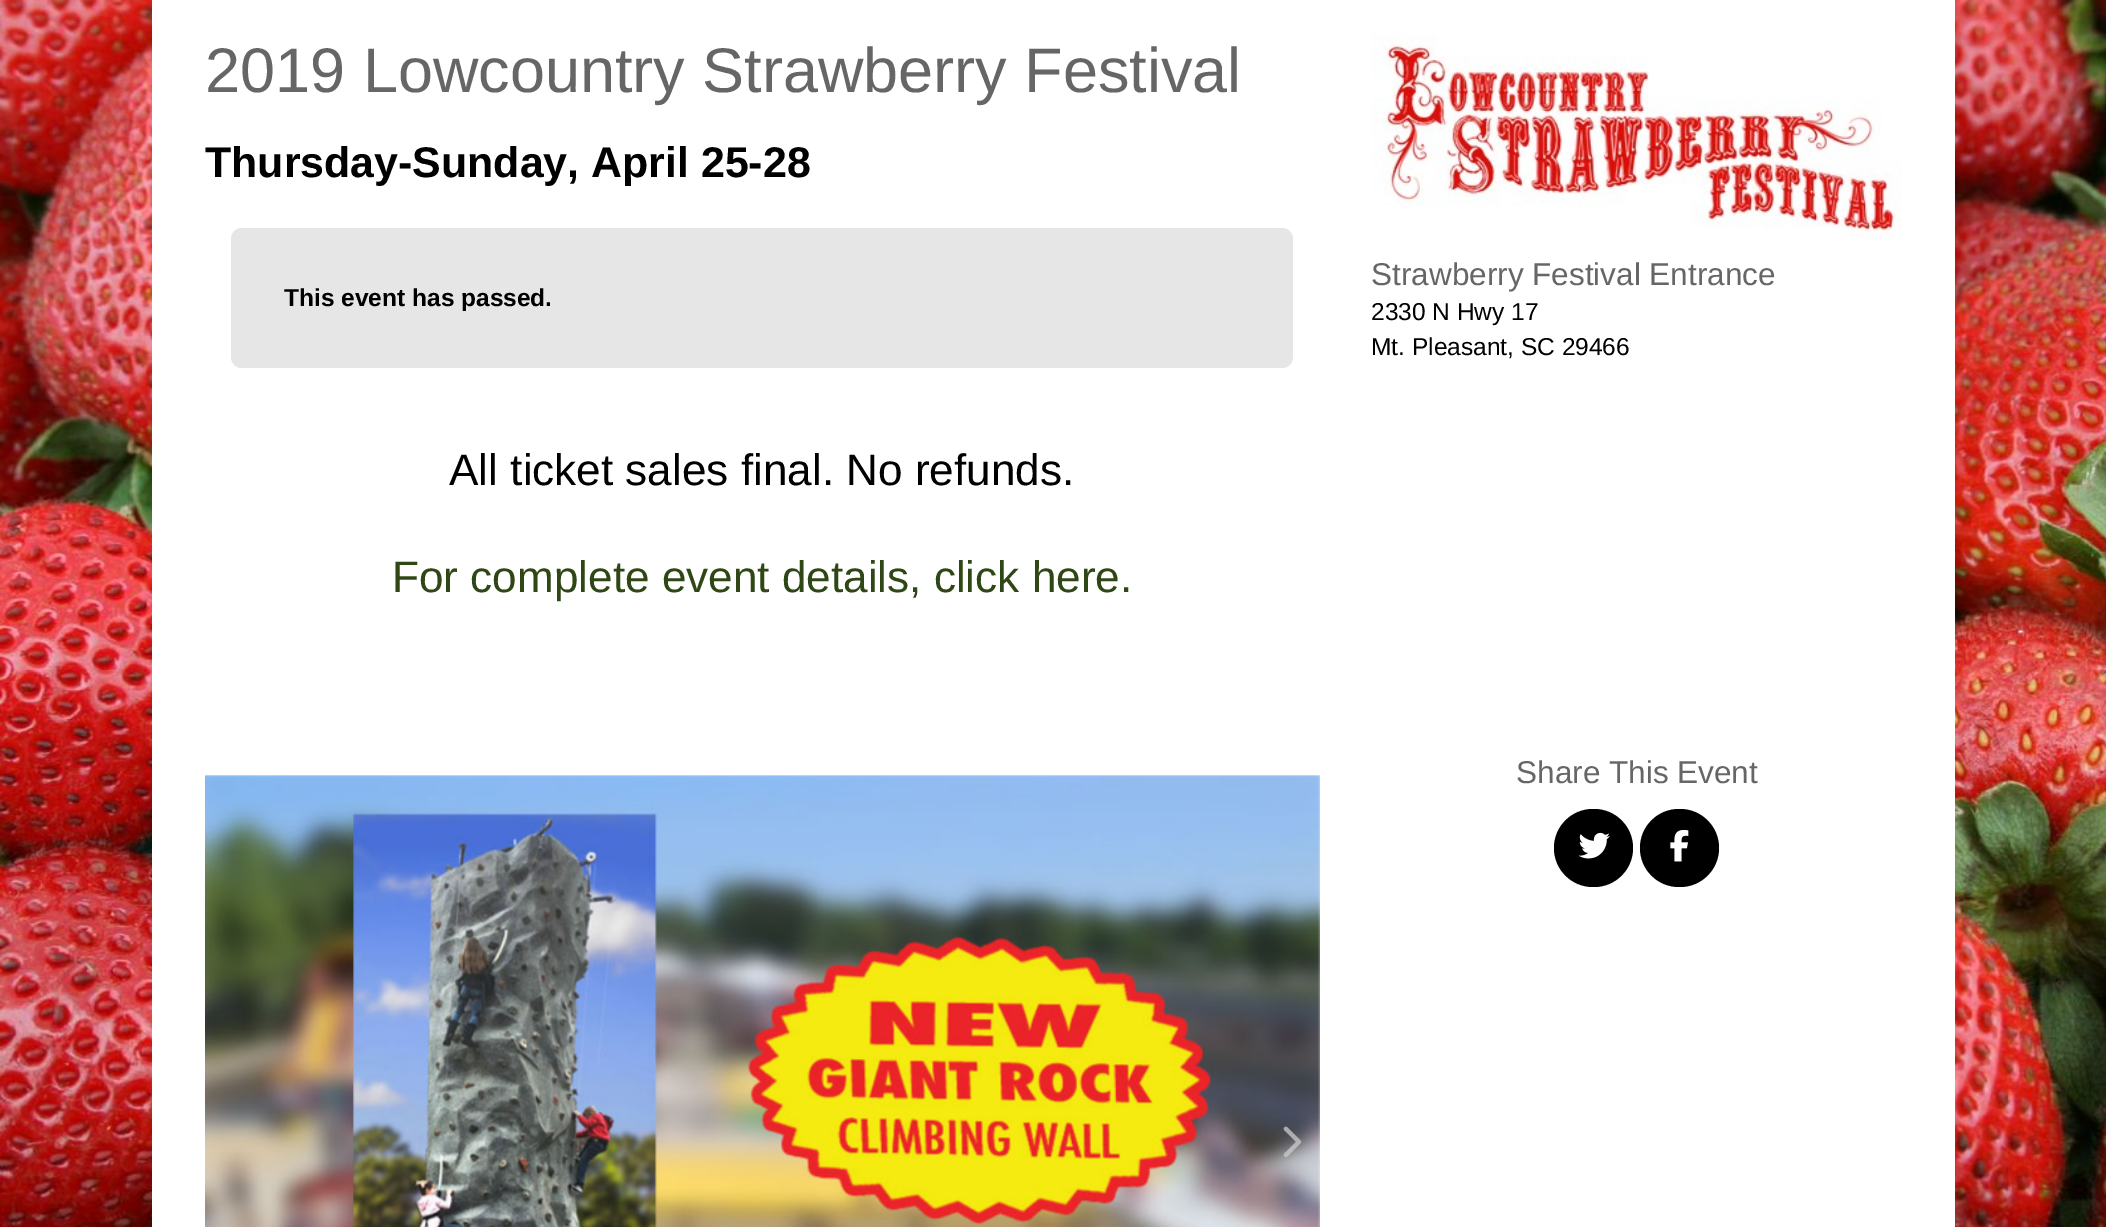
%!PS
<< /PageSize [2106 1227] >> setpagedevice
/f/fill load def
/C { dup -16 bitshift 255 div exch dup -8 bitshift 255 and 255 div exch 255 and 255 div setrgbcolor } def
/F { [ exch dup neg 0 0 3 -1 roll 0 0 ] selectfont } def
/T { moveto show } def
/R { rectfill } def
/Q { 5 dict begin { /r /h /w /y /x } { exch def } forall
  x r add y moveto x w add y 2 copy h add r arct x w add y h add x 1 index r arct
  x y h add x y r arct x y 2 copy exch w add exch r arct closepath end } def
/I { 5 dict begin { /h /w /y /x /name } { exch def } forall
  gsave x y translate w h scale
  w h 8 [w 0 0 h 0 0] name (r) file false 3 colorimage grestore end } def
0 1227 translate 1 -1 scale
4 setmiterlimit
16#FFFFFF C
0 0 2106 1227 R
(1.rgb) 0 0 2106 1227 I
152 0 1803 1227 R
/LiberationSans-Regular 63 F
16#666666 C
(2019 Lowcountry Strawberry Festival) 205 92 T
/LiberationSans-Bold 42.9 F
16#000000 C
(Thursday-Sunday, April 25-28) 205 177 T
16#E6E6E6 C
231 228 1062 140 11 Q f
/LiberationSans-Bold 24.5 F
16#000000 C
(This event has passed.) 284 306 T
/LiberationSans-Regular 44.1 F
(All ticket sales final. No refunds.) 449 485 T
16#2E4715 C
(For complete event details, click here.) 392 592 T
(2.rgb) 205 775 1115 452 I
(3.rgb) 1283 1126 18 32 I
(4.rgb) 1372 35 530 205 I
/LiberationSans-Regular 31.5 F
16#666666 C
(Strawberry Festival Entrance) 1371 285 T
/LiberationSans-Regular 24.5 F
16#000000 C
(2330 N Hwy 17) 1371 320 T
(Mt. Pleasant, SC 29466) 1371 355 T
/LiberationSans-Regular 31.5 F
16#666666 C
(Share This Event) 1516 783 T
16#000000 C
1554 809 79 78 39 Q f
(5.rgb) 1578 832 32 27 I
1640 809 79 78 39 Q f
(6.rgb) 1670 829 19 33 I
showpage
